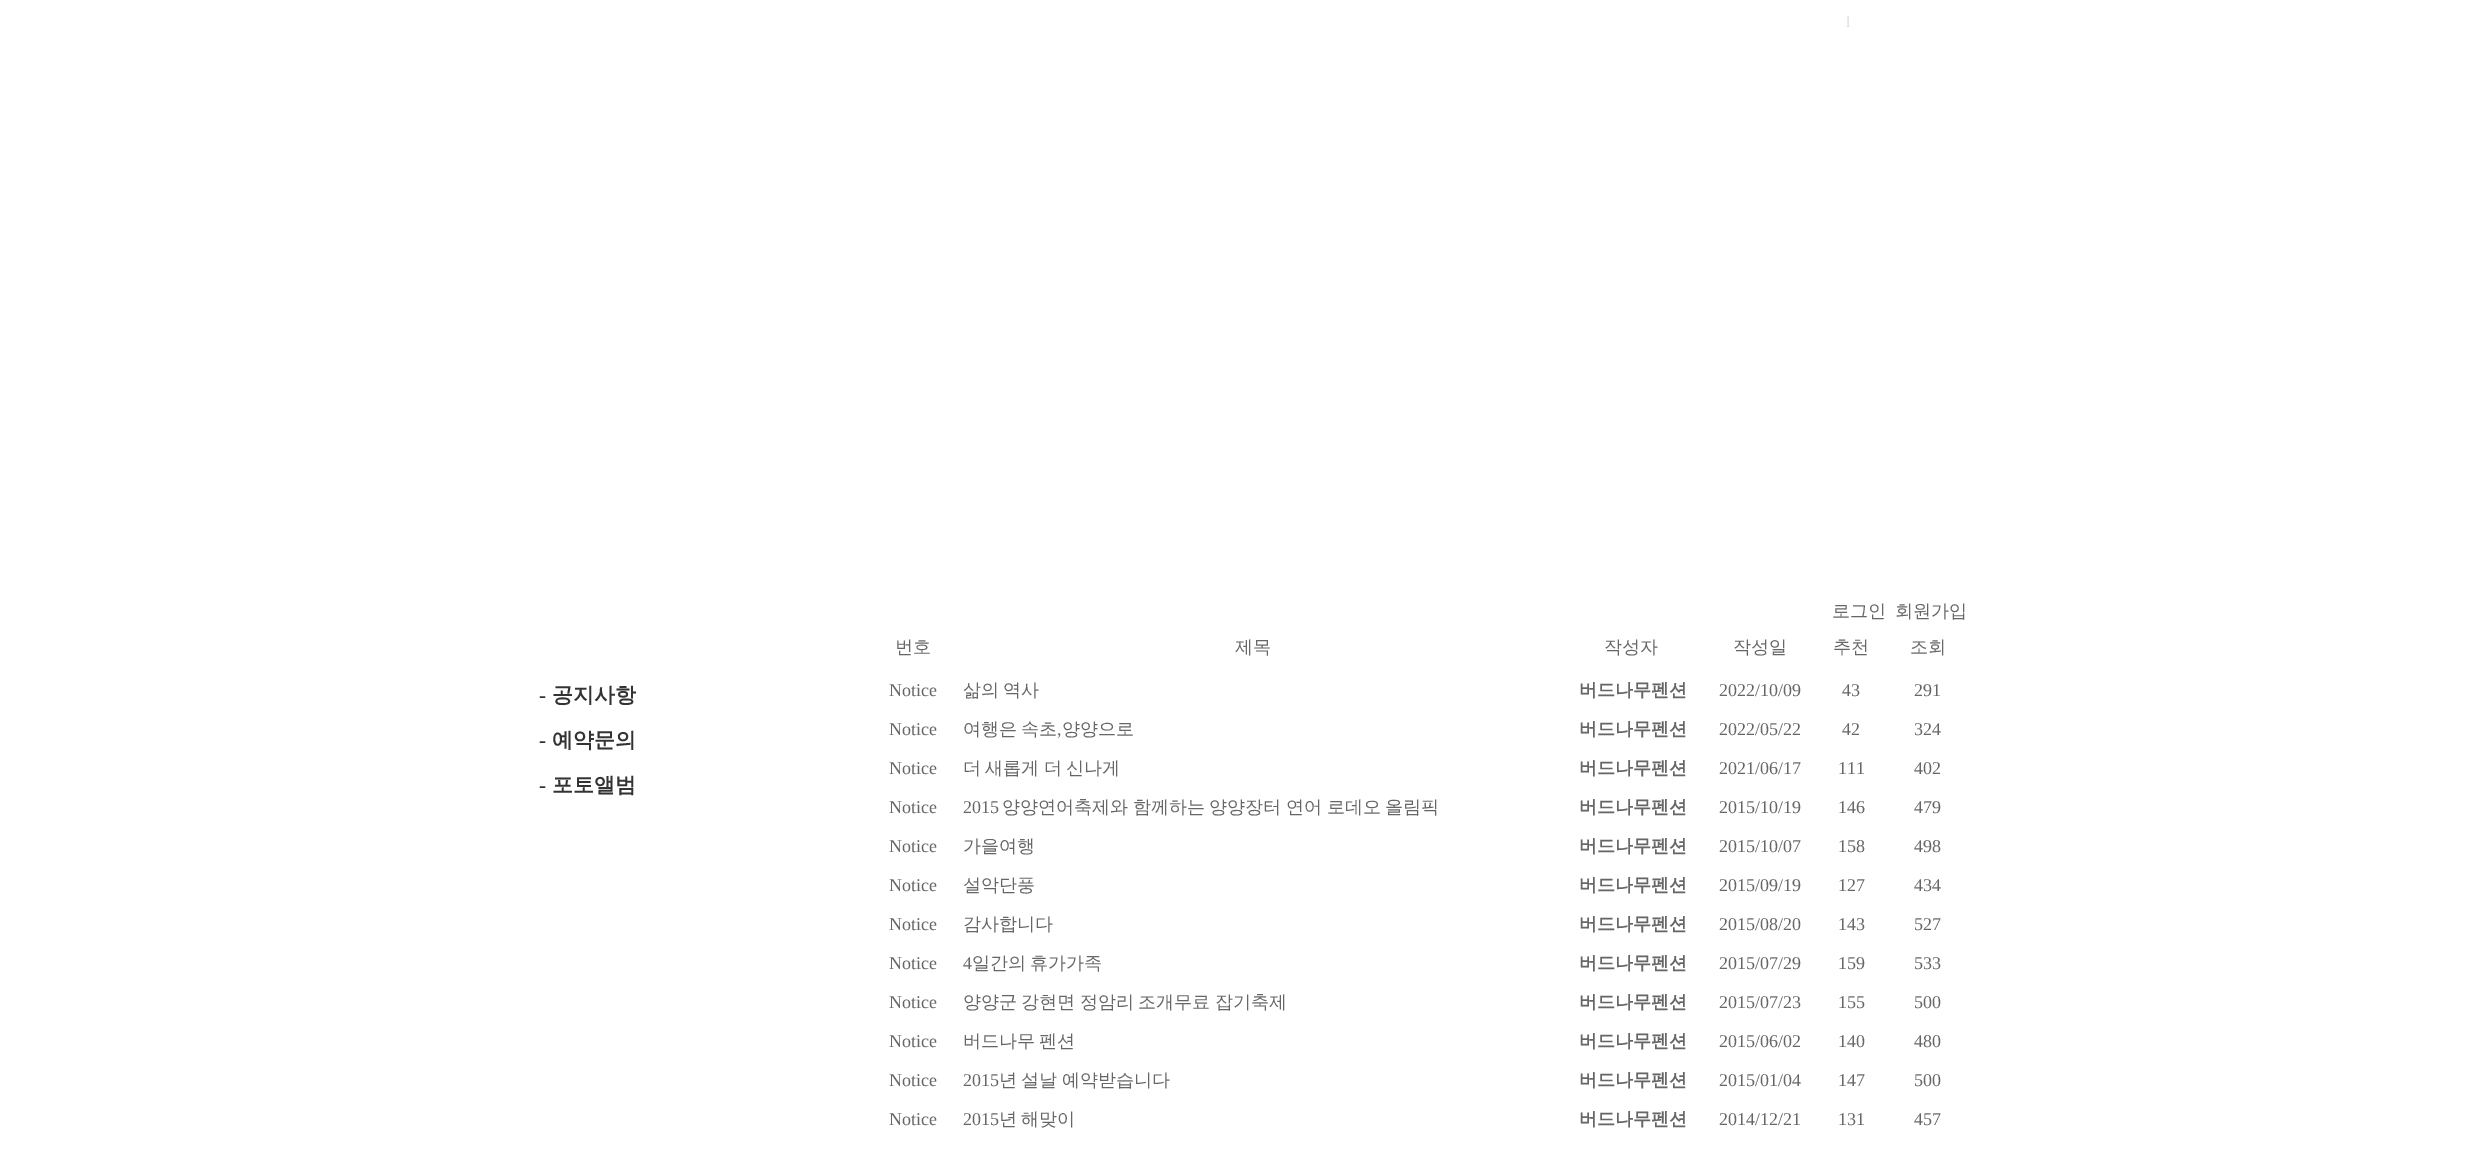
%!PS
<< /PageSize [2490 1155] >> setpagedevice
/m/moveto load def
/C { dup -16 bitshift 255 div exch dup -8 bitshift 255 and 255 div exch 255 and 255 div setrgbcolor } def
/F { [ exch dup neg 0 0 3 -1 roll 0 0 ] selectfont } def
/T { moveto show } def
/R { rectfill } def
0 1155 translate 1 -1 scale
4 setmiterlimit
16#FFFFFF C
0 0 2490 1155 R
/LiberationSerif-Regular 16 F
16#DDDDDD C
(l) 1846 27 T
/LiberationSerif-Bold 21 F
16#333333 C
(-) 539 702 T
/WenQuanYiZenHei-Bold 21 F
(공지사항) 552 702 T
/LiberationSerif-Bold 21 F
(-) 539 747 T
/WenQuanYiZenHei-Bold 21 F
(예약문의) 552 747 T
/LiberationSerif-Bold 21 F
(-) 539 792 T
/WenQuanYiZenHei-Bold 21 F
(포토앨범) 552 792 T
/WenQuanYiZenHei-Medium 18 F
16#666666 C
(로그인) 1832 617 T
(회원가입) 1895 617 T
(번호) 895 653 T
(제목) 1235 653 T
(작성자) 1604 653 T
(작성일) 1733 653 T
(추천) 1833 653 T
(조회) 1910 653 T
/LiberationSerif-Regular 18 F
(Notice) 889 696 T
/WenQuanYiZenHei-Medium 18 F
963 696 m -1 0 32 (삶의 역사) widthshow
/WenQuanYiZenHei-Bold 18 F
(버드나무펜션) 1579 696 T
/LiberationSerif-Regular 18 F
(2022/10/09) 1719 696 T
(43) 1842 696 T
(291) 1914 696 T
(Notice) 889 735 T
/WenQuanYiZenHei-Medium 18 F
963 735 m -1 0 32 (여행은 속초) widthshow
/LiberationSerif-Regular 18 F
(,) 1057 735 T
/WenQuanYiZenHei-Medium 18 F
(양양으로) 1062 735 T
/WenQuanYiZenHei-Bold 18 F
(버드나무펜션) 1579 735 T
/LiberationSerif-Regular 18 F
(2022/05/22) 1719 735 T
(42) 1842 735 T
(324) 1914 735 T
(Notice) 889 774 T
/WenQuanYiZenHei-Medium 18 F
963 774 m -1 0 32 (더 새롭게 더 신나게) widthshow
/WenQuanYiZenHei-Bold 18 F
(버드나무펜션) 1579 774 T
/LiberationSerif-Regular 18 F
(2021/06/17) 1719 774 T
(111) 1838 774 T
(402) 1914 774 T
(Notice) 889 813 T
(2015) 963 813 T
/WenQuanYiZenHei-Medium 18 F
1002 813 m -.75 0 32 (양양연어축제와 함께하는 양양장터 연어 로데오 올림픽) widthshow
/WenQuanYiZenHei-Bold 18 F
(버드나무펜션) 1579 813 T
/LiberationSerif-Regular 18 F
(2015/10/19) 1719 813 T
(146) 1838 813 T
(479) 1914 813 T
(Notice) 889 852 T
/WenQuanYiZenHei-Medium 18 F
(가을여행) 963 852 T
/WenQuanYiZenHei-Bold 18 F
(버드나무펜션) 1579 852 T
/LiberationSerif-Regular 18 F
(2015/10/07) 1719 852 T
(158) 1838 852 T
(498) 1914 852 T
(Notice) 889 891 T
/WenQuanYiZenHei-Medium 18 F
(설악단풍) 963 891 T
/WenQuanYiZenHei-Bold 18 F
(버드나무펜션) 1579 891 T
/LiberationSerif-Regular 18 F
(2015/09/19) 1719 891 T
(127) 1838 891 T
(434) 1914 891 T
(Notice) 889 930 T
/WenQuanYiZenHei-Medium 18 F
(감사합니다) 963 930 T
/WenQuanYiZenHei-Bold 18 F
(버드나무펜션) 1579 930 T
/LiberationSerif-Regular 18 F
(2015/08/20) 1719 930 T
(143) 1838 930 T
(527) 1914 930 T
(Notice) 889 969 T
(4) 963 969 T
/WenQuanYiZenHei-Medium 18 F
972 969 m -1 0 32 (일간의 휴가가족) widthshow
/WenQuanYiZenHei-Bold 18 F
(버드나무펜션) 1579 969 T
/LiberationSerif-Regular 18 F
(2015/07/29) 1719 969 T
(159) 1838 969 T
(533) 1914 969 T
(Notice) 889 1008 T
/WenQuanYiZenHei-Medium 18 F
963 1008 m -1 0 32 (양양군 강현면 정암리 조개무료 잡기축제) widthshow
/WenQuanYiZenHei-Bold 18 F
(버드나무펜션) 1579 1008 T
/LiberationSerif-Regular 18 F
(2015/07/23) 1719 1008 T
(155) 1838 1008 T
(500) 1914 1008 T
(Notice) 889 1047 T
/WenQuanYiZenHei-Medium 18 F
963 1047 m -1 0 32 (버드나무 펜션) widthshow
/WenQuanYiZenHei-Bold 18 F
(버드나무펜션) 1579 1047 T
/LiberationSerif-Regular 18 F
(2015/06/02) 1719 1047 T
(140) 1838 1047 T
(480) 1914 1047 T
(Notice) 889 1086 T
(2015) 963 1086 T
/WenQuanYiZenHei-Medium 18 F
999 1086 m -1 0 32 (년 설날 예약받습니다) widthshow
/WenQuanYiZenHei-Bold 18 F
(버드나무펜션) 1579 1086 T
/LiberationSerif-Regular 18 F
(2015/01/04) 1719 1086 T
(147) 1838 1086 T
(500) 1914 1086 T
(Notice) 889 1125 T
(2015) 963 1125 T
/WenQuanYiZenHei-Medium 18 F
999 1125 m -1 0 32 (년 해맞이) widthshow
/WenQuanYiZenHei-Bold 18 F
(버드나무펜션) 1579 1125 T
/LiberationSerif-Regular 18 F
(2014/12/21) 1719 1125 T
(131) 1838 1125 T
(457) 1914 1125 T
showpage
